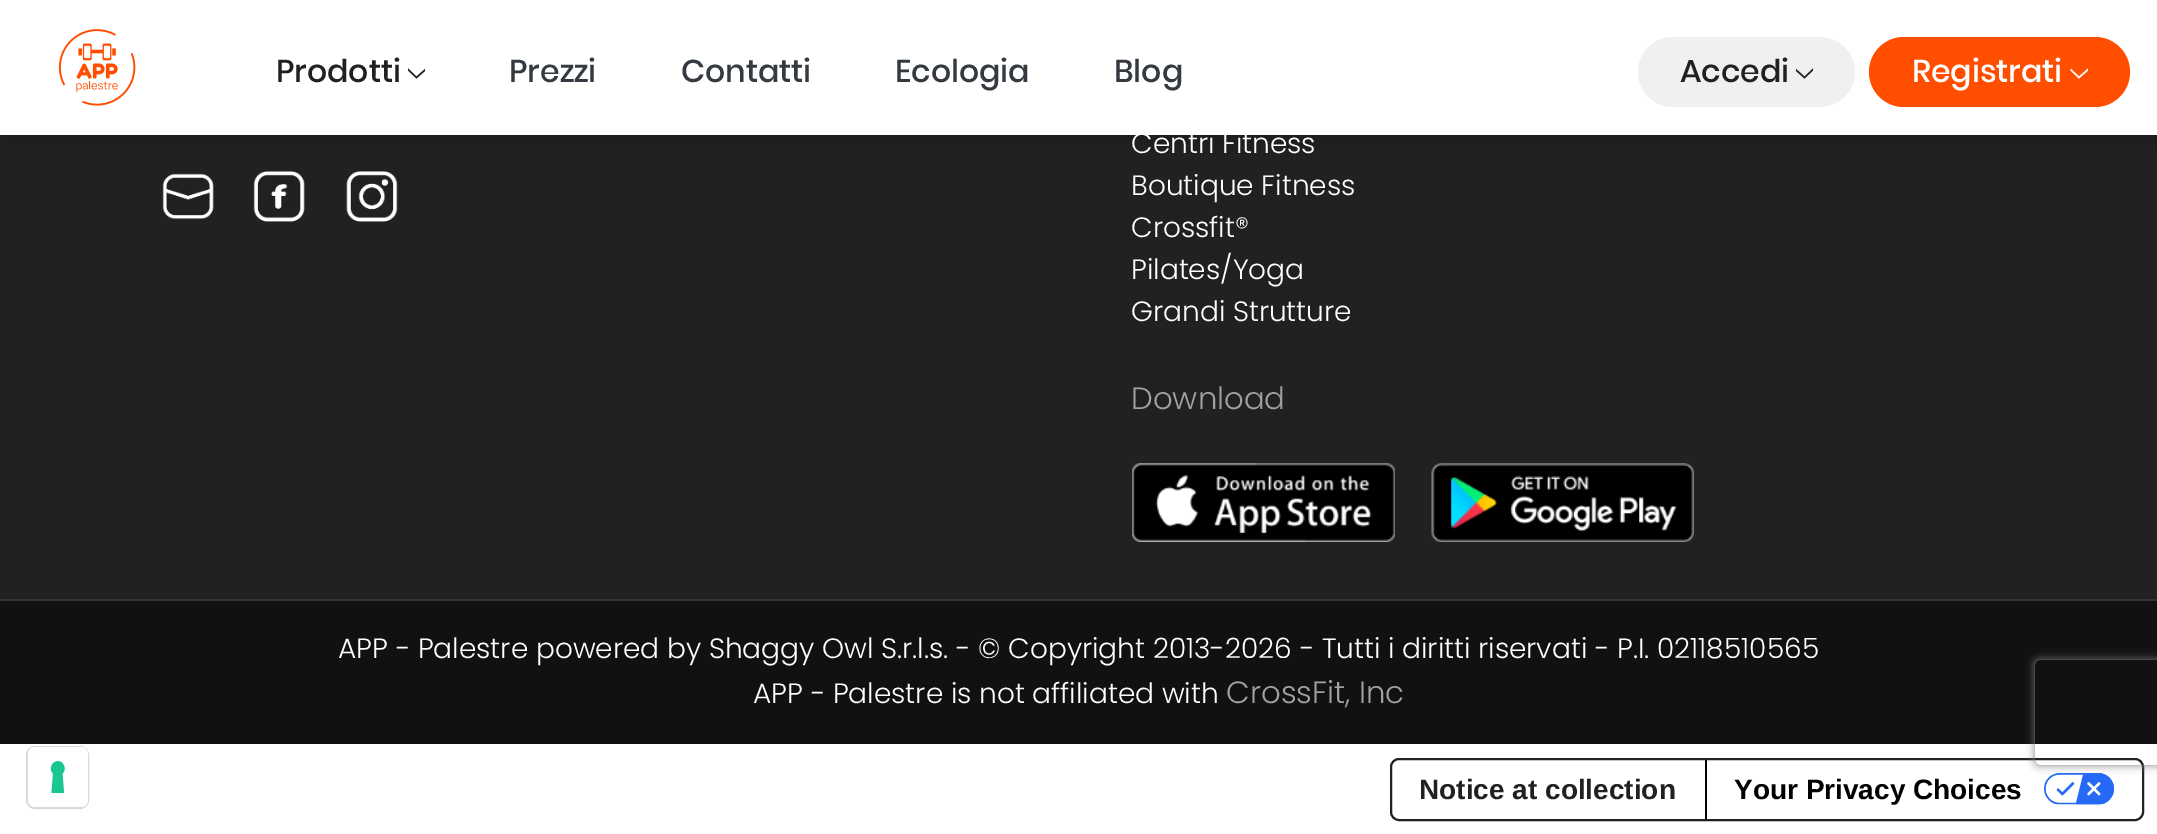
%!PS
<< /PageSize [2157 834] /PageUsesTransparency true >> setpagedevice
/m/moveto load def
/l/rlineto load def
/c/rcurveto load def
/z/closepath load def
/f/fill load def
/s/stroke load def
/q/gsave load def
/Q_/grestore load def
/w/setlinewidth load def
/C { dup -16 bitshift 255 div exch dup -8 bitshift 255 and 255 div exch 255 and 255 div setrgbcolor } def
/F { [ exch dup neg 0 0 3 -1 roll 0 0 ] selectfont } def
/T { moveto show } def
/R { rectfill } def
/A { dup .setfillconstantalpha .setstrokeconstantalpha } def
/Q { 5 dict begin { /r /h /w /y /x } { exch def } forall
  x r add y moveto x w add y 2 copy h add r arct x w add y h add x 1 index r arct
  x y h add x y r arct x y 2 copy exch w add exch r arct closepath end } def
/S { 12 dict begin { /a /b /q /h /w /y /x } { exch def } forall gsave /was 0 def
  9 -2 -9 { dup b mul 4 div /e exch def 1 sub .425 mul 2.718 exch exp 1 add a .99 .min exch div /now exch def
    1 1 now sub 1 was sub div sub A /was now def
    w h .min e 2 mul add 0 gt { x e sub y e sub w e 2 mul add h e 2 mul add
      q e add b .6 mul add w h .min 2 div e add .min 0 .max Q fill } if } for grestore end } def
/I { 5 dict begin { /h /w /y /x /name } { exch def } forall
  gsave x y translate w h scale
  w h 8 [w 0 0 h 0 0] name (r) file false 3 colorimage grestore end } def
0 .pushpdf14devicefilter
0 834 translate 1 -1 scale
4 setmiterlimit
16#FFFFFF C
0 0 2157 834 R
16#212121 C
0 135 2157 464 R
(2.rgb) 162 173 52 47 I
(3.rgb) 253 171 52 51 I
(4.rgb) 346 171 52 51 I
16#000000 C
-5 -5 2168 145 0 13 .12 S
16#FFFFFF C
0 0 2157 135 R
(1.rgb) 58 29 78 77 I
/Poppins-Medium 31.5 F
16#212121 C
(Prodotti) 276 82 T
q
408 65 17 17 rectclip
425.5 70.5 m -9 8 l -8.5 -8 l 0 -2 l 8.5 8 l 9 -8 l z f
Q_
16#343A40 C
(Prezzi) 509 82 T
(Contatti) 681 82 T
(Ecologia) 895 82 T
(Blog) 1114 82 T
16#F0F0F2 C
1638 37 217 70 35 Q f
16#212121 C
(Accedi) 1680 82 T
q
1796 65 17 17 rectclip
1813 70.5 m -8.5 8 l -9 -8 l 0 -2 l 9 8 l 8.5 -8 l z f
Q_
16#FF4E00 C
1869 37 261 70 35 Q f
16#FFFFFF C
(Registrati) 1912 82 T
2088 70.5 m -9 8 l -8.5 -8 l 0 -2 l 8.5 8 l 9 -8 l z f
/Poppins-Light 28 F
(Centri Fitness) 1131 153 T
(Boutique Fitness) 1131 195 T
(Crossfit®) 1131 237 T
(Pilates/Yoga) 1131 279 T
(Grandi Strutture) 1131 321 T
/Poppins-Light 30.75 F
16#A1A1A1 C
(Download) 1131 409 T
(5.rgb) 1132 463 263 79 I
(6.rgb) 1431 463 263 79 I
16#D9D9D9 C
2 w
27 747 61 61 8 Q s
16#FFFFFF C
28 747 60 60 7 Q f
16#1CC691 C
58 761 m 6 .5 9 8.5 4.5 12.5 c 1.5 19.5 l -12.5 0 l 1.5 -19.5 l -4.5 -4 -1.5 -12 5 -12.5 c z eofill
16#111111 C
0 601 2157 143 R
16#333333 C
0 599 2157 2 R
/Poppins-Light 28 F
16#FFFFFF C
(APP - Palestre powered by Shaggy Owl S.r.l.s. - © Copyright 2013-2026 - Tutti i diritti riservati - P.I. 02118510565) 338 658 T
(APP - Palestre is not affiliated with) 753 703 T
/Poppins-Light 30.75 F
16#A1A1A1 C
(CrossFit, Inc) 1226 703 T
16#212121 C
1391 759 752 61 8 Q s
(7.rgb) 2044 773 70 32 I
q
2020 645 m 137 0 l 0 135 l -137 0 l z 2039 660 m 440 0 l 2 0 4 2 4 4 c 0 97 l 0 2 -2 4 -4 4 c -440 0 l -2 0 -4 -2 -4 -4 c 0 -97 l 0 -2 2 -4 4 -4 c z eoclip newpath
16#808080 C
2035 660 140 105 4 4.5 1 S
Q_
/LiberationSans-Bold 28 F
(Notice at collection) 1419 799 T
16#000000 C
1705 760 2 59 R
(Your Privacy Choices) 1734 799 T
.poppdf14devicefilter showpage
